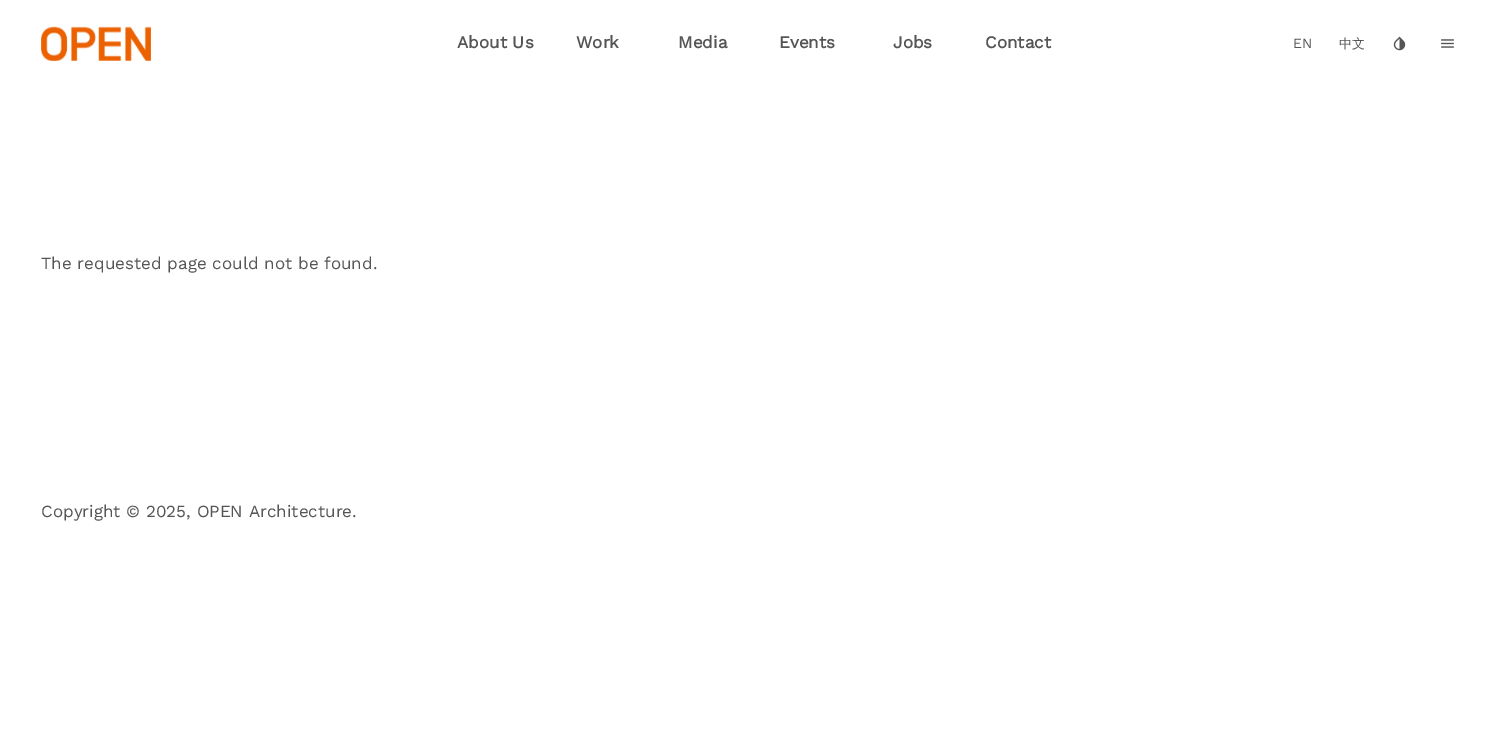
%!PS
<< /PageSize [1510 744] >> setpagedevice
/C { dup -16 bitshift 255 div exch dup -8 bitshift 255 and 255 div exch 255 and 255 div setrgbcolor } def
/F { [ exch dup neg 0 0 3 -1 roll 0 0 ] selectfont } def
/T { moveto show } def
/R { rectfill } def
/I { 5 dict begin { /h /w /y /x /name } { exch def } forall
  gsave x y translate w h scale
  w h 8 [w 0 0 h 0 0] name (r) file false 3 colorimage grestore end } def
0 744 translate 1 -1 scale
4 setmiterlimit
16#FFFFFF C
0 0 1510 744 R
/WorkSans-Bold 17 F
16#555555 C
(About Us) 457 48 T
(Work) 576 48 T
(Media) 678 48 T
(Events) 779 48 T
(Jobs) 893 48 T
(Contact) 985 48 T
(1.rgb) 41 26 110 35 I
/WorkSans-Regular 14 F
(EN) 1293 48 T
/WenQuanYiZenHei-Medium 13 F
(中文) 1339 48 T
(2.rgb) 1393 36 13 15 I
(3.rgb) 1441 39 13 9 I
/WorkSans-Regular 17 F
(The requested page could not be found.) 41 269 T
(Copyright © 2025, OPEN Architecture.) 41 517 T
showpage
